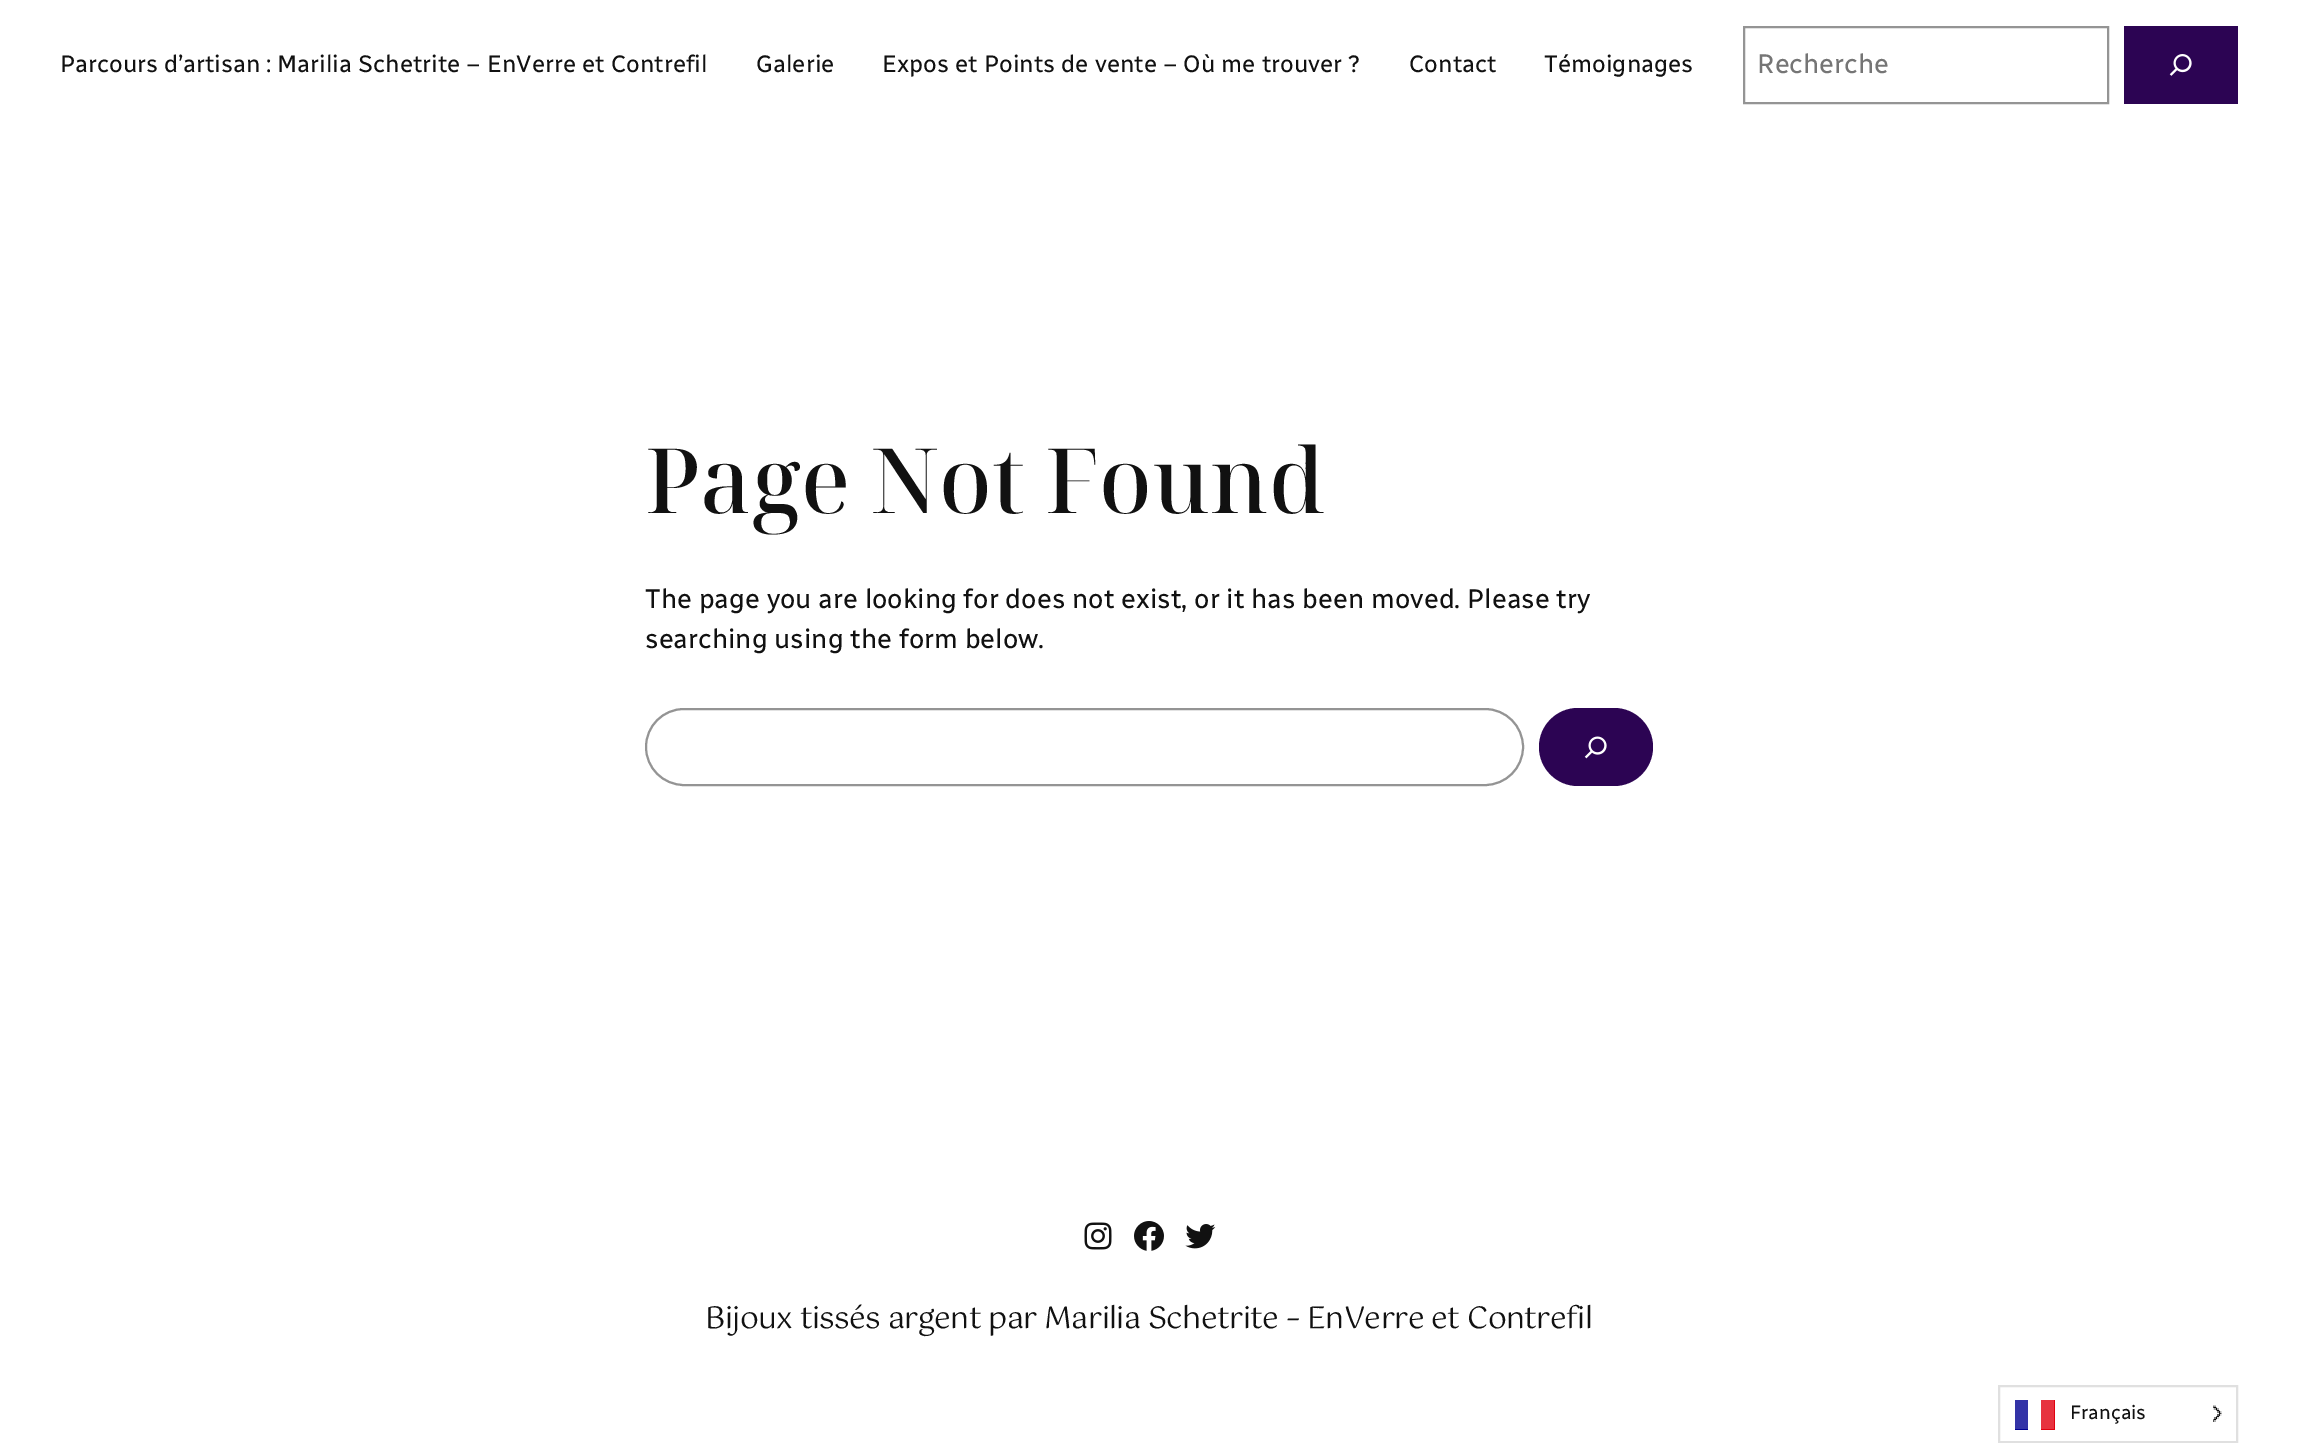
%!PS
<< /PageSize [2298 1443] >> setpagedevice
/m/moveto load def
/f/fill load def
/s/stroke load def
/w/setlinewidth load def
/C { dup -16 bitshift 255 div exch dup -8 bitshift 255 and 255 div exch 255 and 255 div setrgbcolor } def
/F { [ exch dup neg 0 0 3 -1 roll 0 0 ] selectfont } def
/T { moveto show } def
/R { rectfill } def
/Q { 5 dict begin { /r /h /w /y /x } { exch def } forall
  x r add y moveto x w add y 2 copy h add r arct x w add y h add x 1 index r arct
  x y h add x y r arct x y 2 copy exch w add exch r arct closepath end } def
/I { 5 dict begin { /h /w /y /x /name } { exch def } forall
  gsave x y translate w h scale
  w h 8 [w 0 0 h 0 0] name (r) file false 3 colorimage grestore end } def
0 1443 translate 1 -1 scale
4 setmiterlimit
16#FFFFFF C
0 0 2298 1443 R
/RadioCanada-Regular 24 F
16#111111 C
(Parcours d’artisan : Marilia Schetrite – EnVerre et Contrefil) 60 72 T
(Galerie) 756 72 T
(Expos et Points de vente – Où me trouver ?) 882 72 T
(Contact) 1409 72 T
(Témoignages) 1544 72 T
16#949494 C
2 w
1744 27 364 76 rectstroke
/RadioCanada-Regular 27 F
16#757575 C
(Recherche) 1757 73 T
16#2C0453 C
2124 26 114 78 R
(1.rgb) 2169 54 23 22 I
/NotoSerifDisplay-Medium 90 F
16#111111 C
(Page Not Found) 645 513 T
/RadioCanada-Regular 27 F
(The page you are looking for does not exist, or it has been moved. Please try) 645 608 T
(searching using the form below.) 645 648 T
16#949494 C
646 709 877 76 38 Q s
16#2C0453 C
1539 708 114 78 39 Q f
(2.rgb) 1584 736 23 23 I
(3.rgb) 1084 1222 28 28 I
(4.rgb) 1134 1221 30 30 I
(5.rgb) 1185 1224 31 25 I
/Gotu-Regular 30 F
16#111111 C
705 1328 m -.6 0 (Bijoux tissés argent par Marilia Schetrite – EnVerre et Contrefil) ashow
16#E0E0E0 C
1999 1386 238 56 rectstroke
16#000091 C
2015 1429 13 1 R
16#3333A7 C
2015 1400 13 29 R
16#E1000F C
2041 1400 14 30 R
16#E7333F C
2041 1400 13 29 R
/RadioCanada-Regular 19.5 F
16#111111 C
(Français) 2070 1419 T
(6.rgb) 2213 1405 9 17 I
showpage
